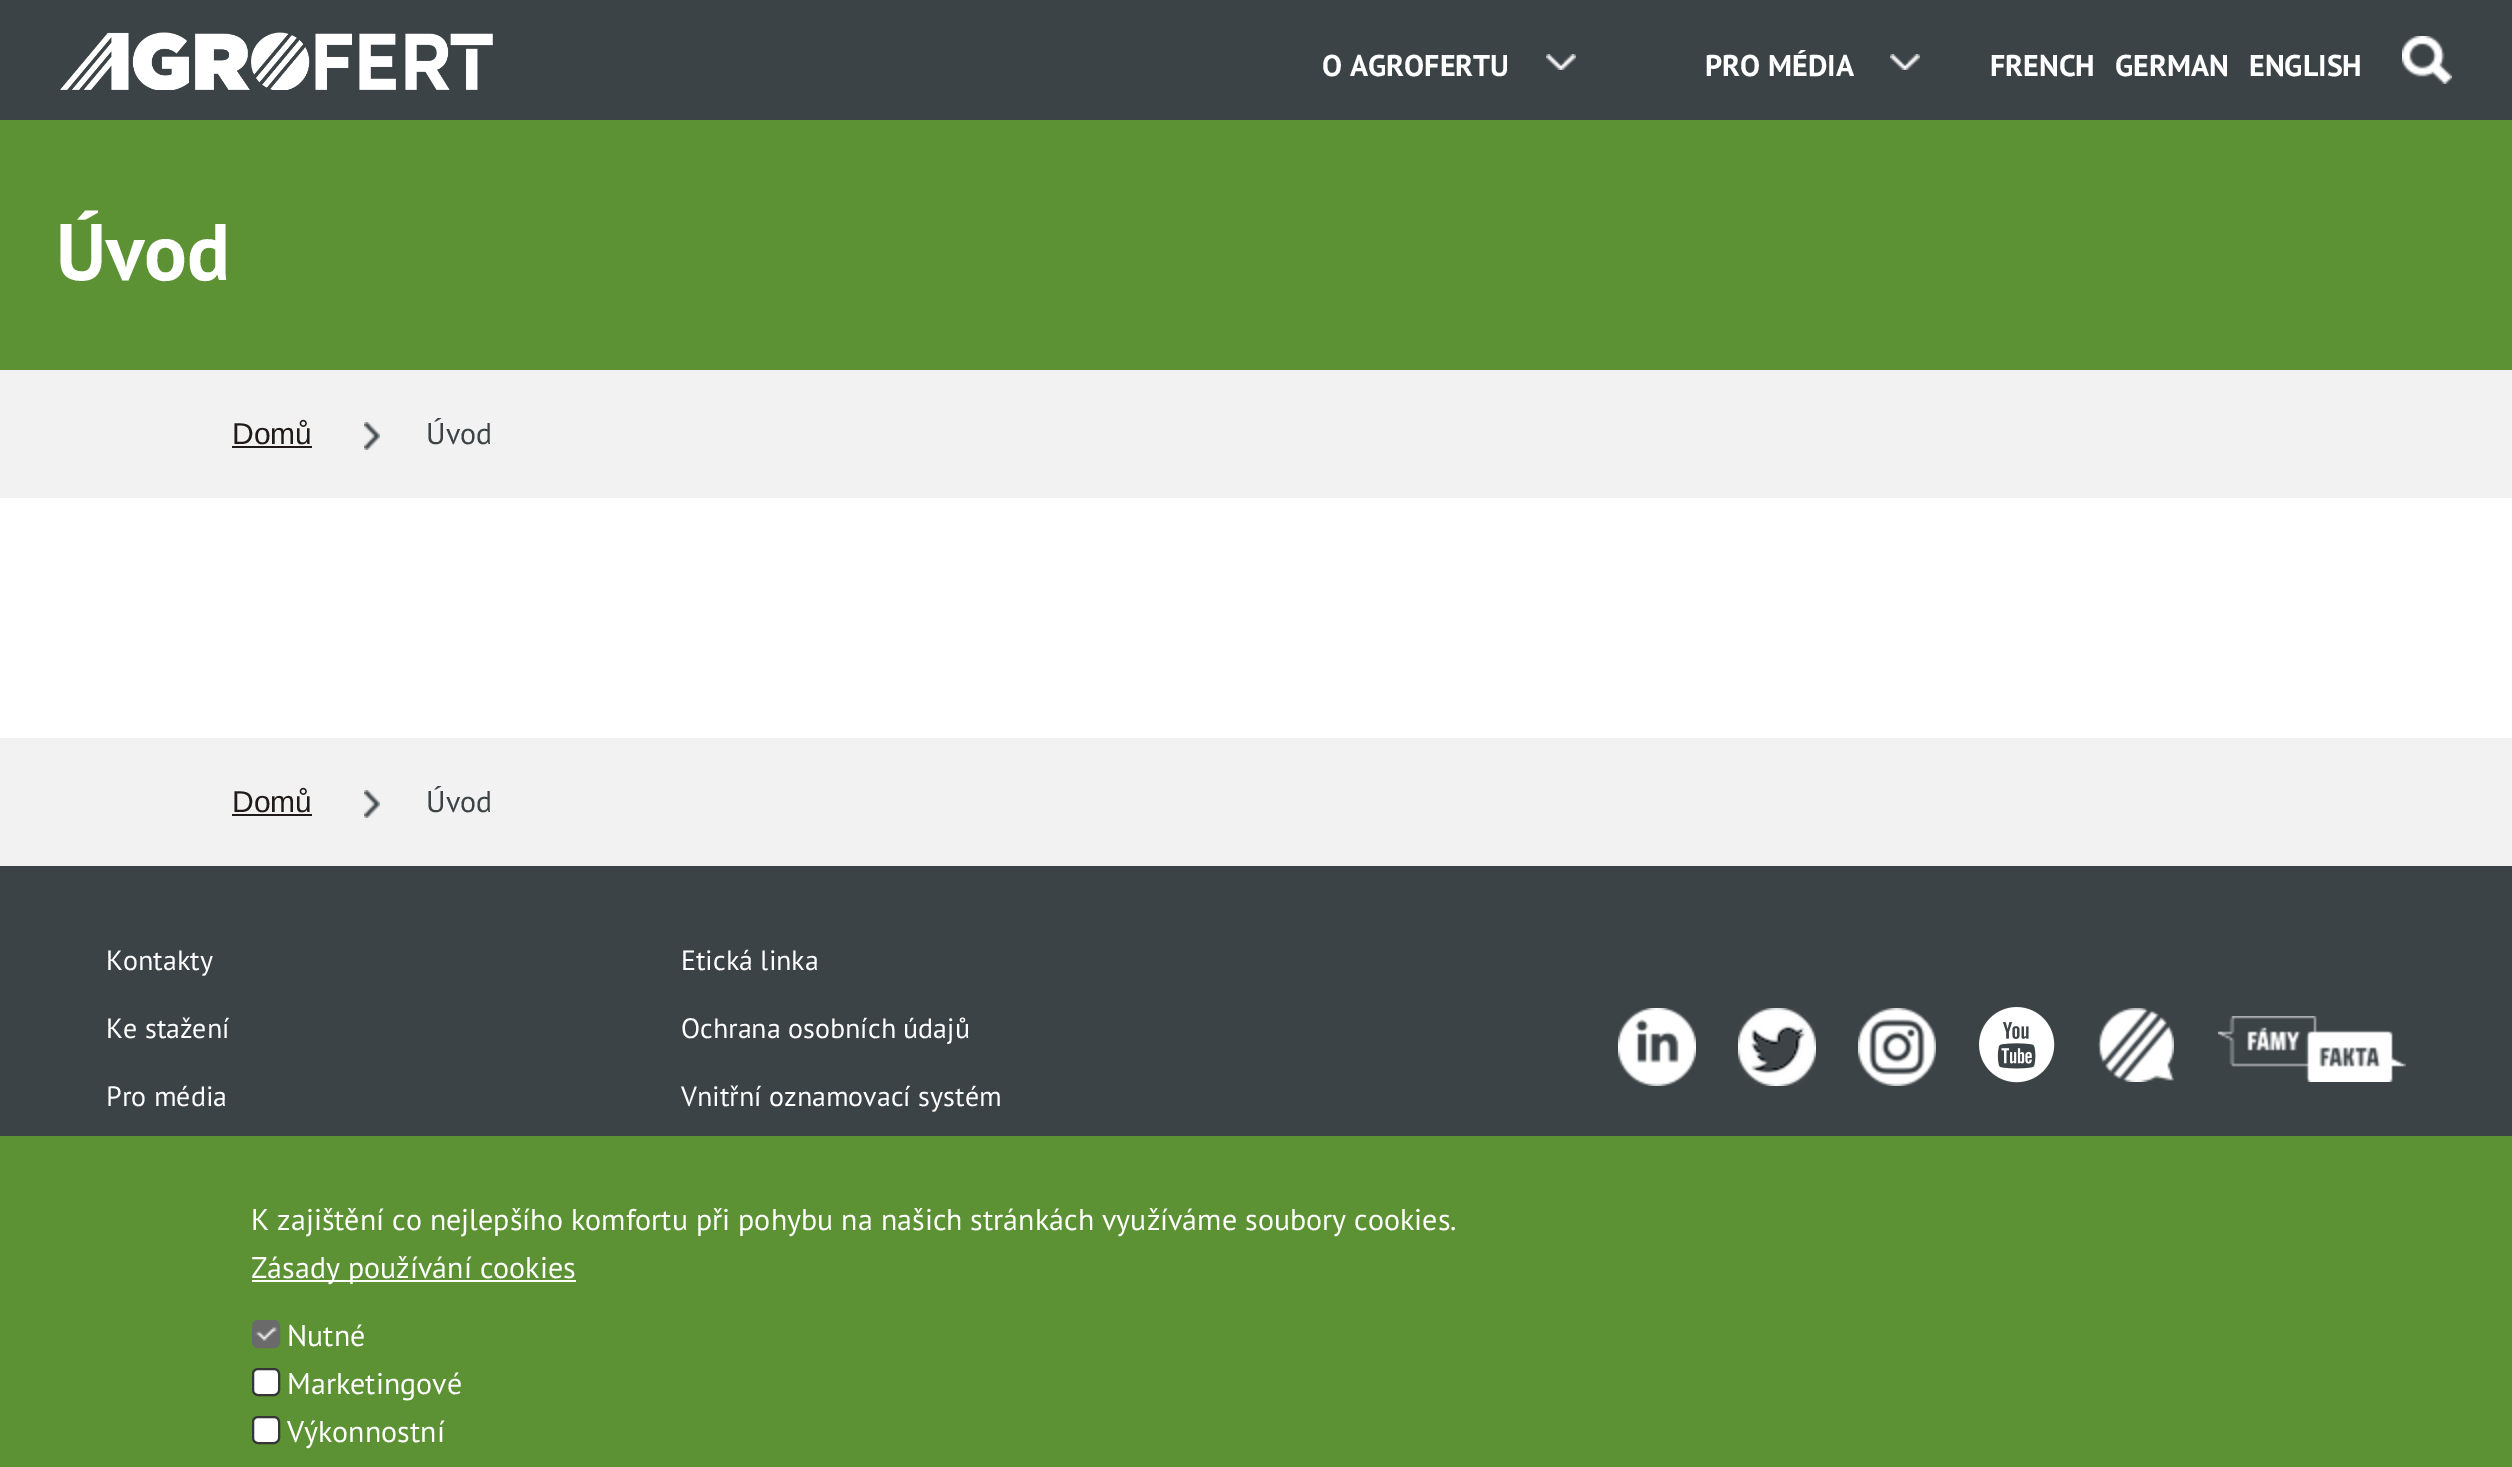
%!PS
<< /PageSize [2512 1467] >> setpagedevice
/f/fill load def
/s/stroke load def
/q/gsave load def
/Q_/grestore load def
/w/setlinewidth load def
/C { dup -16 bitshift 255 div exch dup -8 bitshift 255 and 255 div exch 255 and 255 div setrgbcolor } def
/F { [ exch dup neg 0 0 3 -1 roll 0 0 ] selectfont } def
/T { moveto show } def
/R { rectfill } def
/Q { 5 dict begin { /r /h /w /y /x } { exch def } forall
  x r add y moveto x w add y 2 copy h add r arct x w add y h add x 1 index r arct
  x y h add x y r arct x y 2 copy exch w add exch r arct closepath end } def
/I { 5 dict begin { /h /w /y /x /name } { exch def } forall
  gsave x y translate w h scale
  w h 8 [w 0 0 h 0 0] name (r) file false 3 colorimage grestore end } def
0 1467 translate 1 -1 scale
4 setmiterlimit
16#FFFFFF C
0 0 2512 1467 R
16#3C4347 C
0 0 2512 120 R
(1.rgb) 60 32 433 58 I
/PTSans-Bold 30 F
16#FFFFFF C
(O AGROFERTU) 1322 76 T
(2.rgb) 1546 54 16 16 I
(3.rgb) 1560 54 16 16 I
(PRO MÉDIA) 1705 76 T
(2.rgb) 1890 54 16 16 I
(3.rgb) 1904 54 16 16 I
(FRENCH) 1990 76 T
(GERMAN) 2115 76 T
(ENGLISH) 2249 76 T
(4.rgb) 2402 36 50 48 I
16#5C9234 C
0 120 2512 250 R
/PTSans-Bold 80 F
16#FFFFFF C
(Úvod) 56 280 T
16#F2F2F2 C
0 370 2512 128 R
/LiberationSans-Regular 30 F
16#201B18 C
(Domů) 232 444 T
232 446 80 2 R
(5.rgb) 364 422 16 28 I
/PTSans-Regular 30 F
16#3C4347 C
(Úvod) 426 444 T
16#F2F2F2 C
0 738 2512 128 R
/LiberationSans-Regular 30 F
16#201B18 C
(Domů) 232 812 T
232 814 80 2 R
(5.rgb) 364 790 16 28 I
/PTSans-Regular 30 F
16#3C4347 C
(Úvod) 426 812 T
0 866 2512 270 R
/PTSans-Regular 28 F
16#FFFFFF C
(Kontakty) 106 970 T
(Etická linka) 681 970 T
(Ke stažení) 106 1038 T
(Ochrana osobních údajů) 681 1038 T
(Pro média) 106 1106 T
(Vnitřní oznamovací systém) 681 1106 T
(6.rgb) 1618 1008 78 78 I
(7.rgb) 1738 1008 78 78 I
(8.rgb) 1858 1008 78 78 I
(9.rgb) 1979 1007 76 76 I
(10.rgb) 2098 1008 76 74 I
(11.rgb) 2218 1016 188 66 I
16#5C9234 C
0 1136 2512 331 R
/PTSans-Regular 30 F
16#FFFFFF C
(K zajištění co nejlepšího komfortu při pohybu na našich stránkách využíváme soubory cookies.) 251 1230 T
252 1280 324 2 R
(Zásady používání cookies) 251 1278 T
16#6A6A6A C
2 w
253 1321 26 26 5 Q s
254 1322 24 24 R
(12.rgb) 255 1327 23 14 I
16#FFFFFF C
(Nutné) 287 1346 T
253 1369 26 26 5 Q q f Q_
16#363636 C
s
16#FFFFFF C
(Marketingové) 287 1394 T
253 1417 26 26 5 Q q f Q_
16#363636 C
s
16#FFFFFF C
(Výkonnostní) 287 1442 T
showpage
